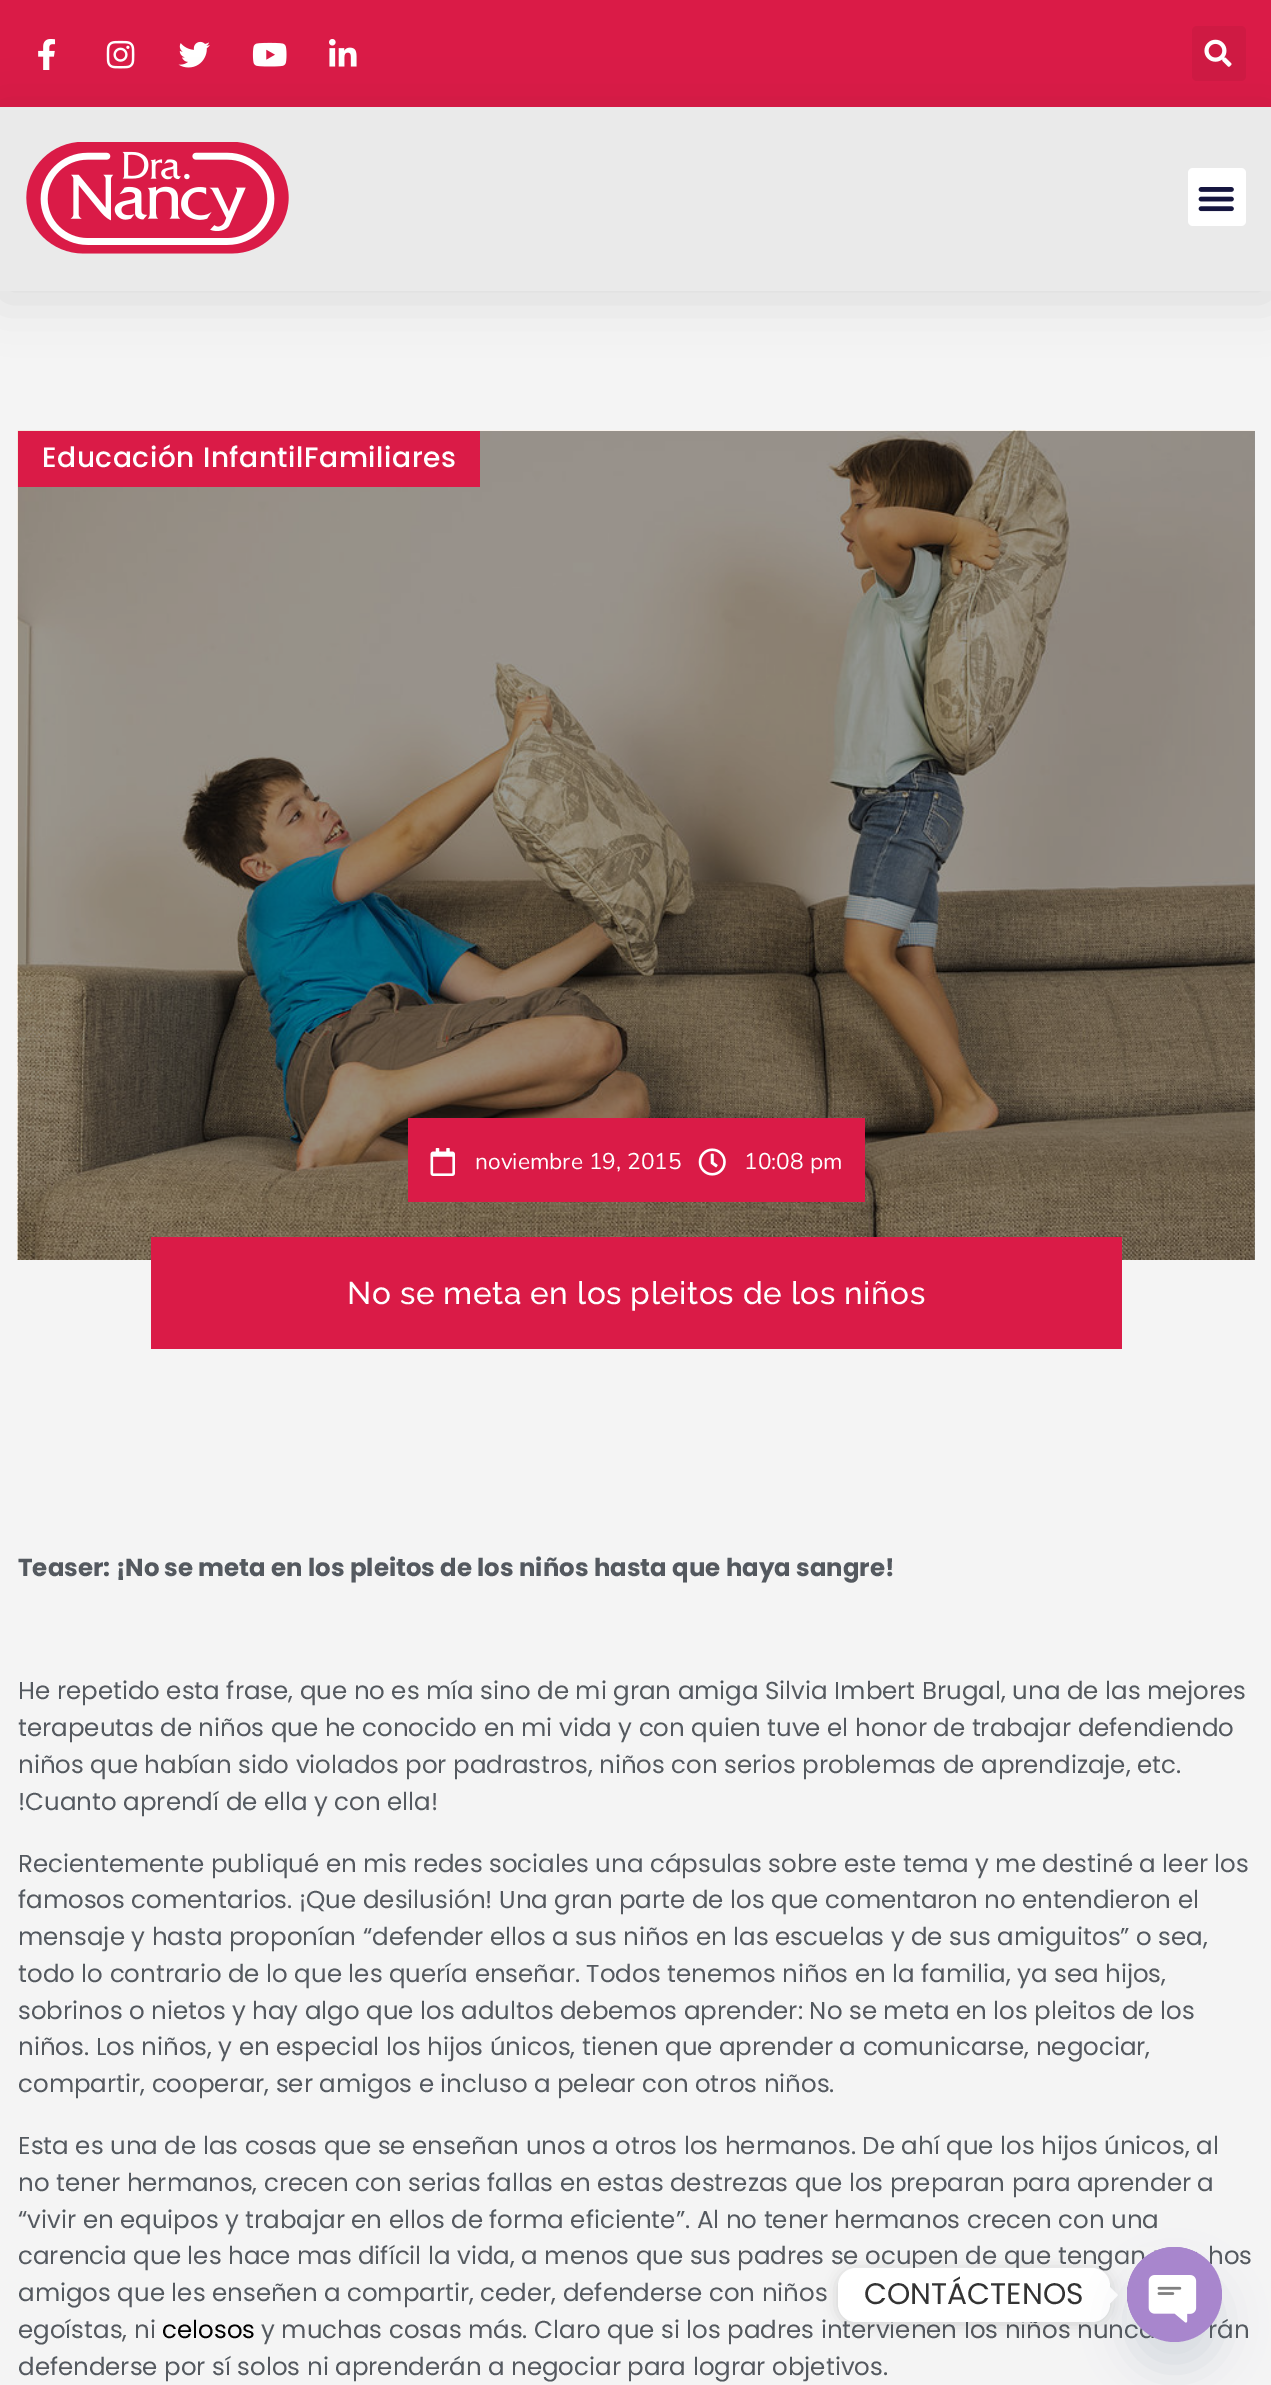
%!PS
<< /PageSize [1271 2385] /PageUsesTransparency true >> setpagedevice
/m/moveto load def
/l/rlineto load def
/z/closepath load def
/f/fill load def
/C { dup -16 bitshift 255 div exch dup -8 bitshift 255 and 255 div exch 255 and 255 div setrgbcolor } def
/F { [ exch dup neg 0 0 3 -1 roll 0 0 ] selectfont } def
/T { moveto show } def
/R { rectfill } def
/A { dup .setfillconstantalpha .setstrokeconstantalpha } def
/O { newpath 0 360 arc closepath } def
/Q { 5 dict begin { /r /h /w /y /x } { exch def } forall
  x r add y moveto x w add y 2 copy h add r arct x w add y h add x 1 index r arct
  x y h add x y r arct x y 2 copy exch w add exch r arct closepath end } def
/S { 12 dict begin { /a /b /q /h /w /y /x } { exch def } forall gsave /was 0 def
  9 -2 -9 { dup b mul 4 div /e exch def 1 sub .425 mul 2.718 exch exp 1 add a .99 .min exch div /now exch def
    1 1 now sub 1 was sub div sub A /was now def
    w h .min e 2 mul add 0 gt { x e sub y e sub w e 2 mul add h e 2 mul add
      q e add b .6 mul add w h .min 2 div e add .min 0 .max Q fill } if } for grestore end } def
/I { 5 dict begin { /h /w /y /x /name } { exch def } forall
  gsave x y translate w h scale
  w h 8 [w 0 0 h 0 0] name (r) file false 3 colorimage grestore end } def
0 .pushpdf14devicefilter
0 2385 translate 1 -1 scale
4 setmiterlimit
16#F4F4F4 C
0 0 1271 2385 R
16#DA1B47 C
0 0 1271 107 R
(1.rgb) 38 39 18 31 I
(2.rgb) 106 40 29 29 I
(3.rgb) 178 41 32 27 I
(4.rgb) 252 42 35 25 I
(5.rgb) 329 39 28 28 I
16#CF1A43 C
1192 26 54 55 5 Q f
(6.rgb) 1204 39 28 28 I
16#000000 C
0 116 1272 183 0 26 .1 S
16#EAEAEA C
0 107 1271 184 R
(7.rgb) 26 142 263 112 I
16#FFFFFF C
1188 168 58 58 5 Q f
(8.rgb) 1198 187 36 25 I
(9.rgb) 17 430 1238 830 I
16#DA1B47 C
18 431 462 56 R
/Poppins-Medium 28 F
16#FFFFFF C
42 467 m .55 0 (Educación InfantilFamiliares) ashow
16#DA1B47 C
408 1118 457 84 R
(10.rgb) 430 1148 25 28 I
/Nunito-Regular 22.75 F
16#FFFFFF C
(noviembre 19, 2015) 475 1169 T
(11.rgb) 698 1148 28 28 I
(10:08 pm) 744 1169 T
16#DA1B47 C
151 1237 971 112 R
/Raleway-Medium 31.5 F
16#FFFFFF C
347 1304 m .55 0 (No se meta en los pleitos de los niños) ashow
/Poppins-Bold 24.5 F
16#54595F C
(Teaser: ¡No se meta en los pleitos de los niños hasta que haya sangre!) 18 1576 T
/Poppins-Regular 24.5 F
(He repetido esta frase, que no es mía sino de mi gran amiga Silvia Imbert Brugal, una de las mejores) 18 1699 T
(terapeutas de niños que he conocido en mi vida y con quien tuve el honor de trabajar defendiendo) 18 1736 T
(niños que habían sido violados por padrastros, niños con serios problemas de aprendizaje, etc.) 18 1773 T
(!Cuanto aprendí de ella y con ella!) 18 1810 T
(Recientemente publiqué en mis redes sociales una cápsulas sobre este tema y me destiné a leer los) 18 1872 T
(famosos comentarios. ¡Que desilusión! Una gran parte de los que comentaron no entendieron el) 18 1908 T
(mensaje y hasta proponían “defender ellos a sus niños en las escuelas y de sus amiguitos” o sea,) 18 1945 T
(todo lo contrario de lo que les quería enseñar. Todos tenemos niños en la familia, ya sea hijos,) 18 1982 T
(sobrinos o nietos y hay algo que los adultos debemos aprender: No se meta en los pleitos de los) 18 2019 T
(niños. Los niños, y en especial los hijos únicos, tienen que aprender a comunicarse, negociar,) 18 2055 T
(compartir, cooperar, ser amigos e incluso a pelear con otros niños.) 18 2092 T
(Esta es una de las cosas que se enseñan unos a otros los hermanos. De ahí que los hijos únicos, al) 18 2154 T
(no tener hermanos, crecen con serias fallas en estas destrezas que los preparan para aprender a) 18 2191 T
(“vivir en equipos y trabajar en ellos de forma eficiente”. Al no tener hermanos crecen con una) 18 2228 T
(carencia que les hace mas difícil la vida, a menos que sus padres se ocupen de que tengan) 18 2264 T
(hos) 1208 2264 T
(amigos que les enseñen a compartir, ceder, defenderse con niños) 18 2301 T
(egoístas, ni) 18 2338 T
16#000000 C
(celosos) 162 2338 T
16#54595F C
(y muchas cosas más. Claro que si los padres intervienen los niños nunca) 261 2338 T
(rán) 1208 2338 T
(defenderse por sí solos ni aprenderán a negociar para lograr objetivos.) 18 2375 T
16#000000 C
838 2270 272 54 18 7 .15 S
16#FFFFFF C
838 2268 272 54 18 Q f
/Poppins-Regular 29.75 F
16#333333 C
(CONTÁCTENOS) 864 2304 T
16#FFFFFF C
1109.5 2304 m 0 -17.5 l 8.5 8.5 l z f
16#49687E C
1127 2275 95 95 47.5 21 .16 S
16#A886CD C
1174.5 2294.5 47.5 O f
(12.rgb) 1127 2247 70 76 I
.poppdf14devicefilter showpage
